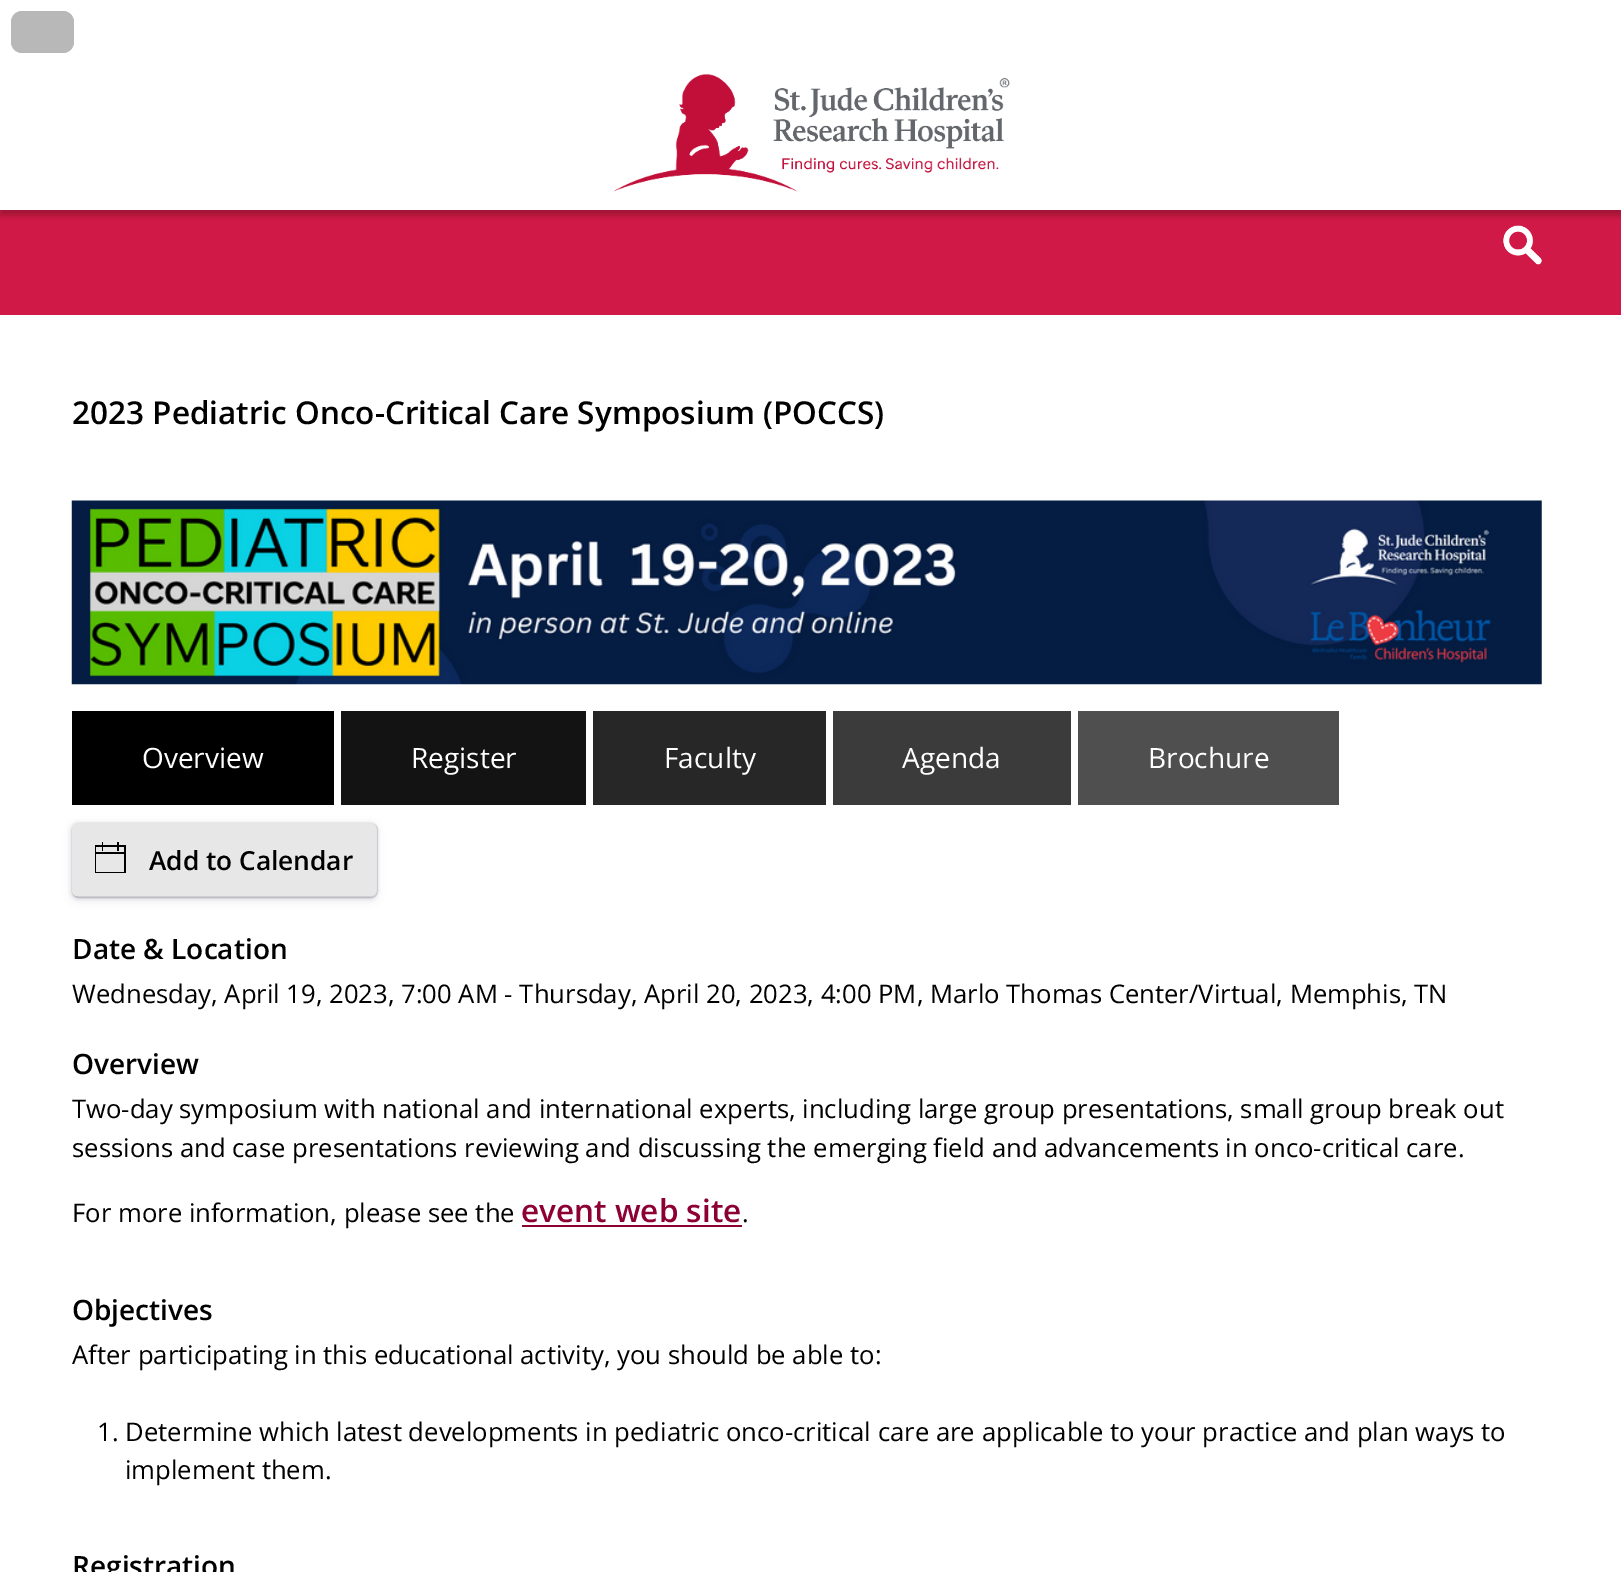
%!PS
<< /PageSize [1621 1572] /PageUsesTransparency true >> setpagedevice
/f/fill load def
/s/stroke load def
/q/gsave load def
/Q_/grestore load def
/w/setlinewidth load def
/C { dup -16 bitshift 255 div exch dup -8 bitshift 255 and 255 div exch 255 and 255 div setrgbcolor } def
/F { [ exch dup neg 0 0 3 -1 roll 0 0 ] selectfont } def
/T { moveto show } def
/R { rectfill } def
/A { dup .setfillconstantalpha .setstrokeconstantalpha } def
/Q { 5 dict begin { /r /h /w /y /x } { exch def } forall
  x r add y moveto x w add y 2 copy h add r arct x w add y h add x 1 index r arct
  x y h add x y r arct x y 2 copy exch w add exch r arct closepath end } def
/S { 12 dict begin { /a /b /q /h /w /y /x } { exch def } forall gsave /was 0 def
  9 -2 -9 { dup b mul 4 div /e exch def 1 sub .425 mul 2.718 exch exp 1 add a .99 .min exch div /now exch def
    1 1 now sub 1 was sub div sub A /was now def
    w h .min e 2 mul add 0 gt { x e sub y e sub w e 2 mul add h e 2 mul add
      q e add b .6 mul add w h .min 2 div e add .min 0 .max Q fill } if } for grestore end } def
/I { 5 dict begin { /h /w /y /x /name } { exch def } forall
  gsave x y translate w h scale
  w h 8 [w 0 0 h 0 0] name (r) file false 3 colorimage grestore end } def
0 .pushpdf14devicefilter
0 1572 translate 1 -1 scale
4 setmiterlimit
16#FFFFFF C
0 0 1621 1572 R
16#D11947 C
0 210 1621 105 R
(2.rgb) 1503 225 39 40 I
q
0 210 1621 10 rectclip
16#000000 C
0 5 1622 210 0 3.5 .25 S
Q_
16#B8B8B8 C
11 11 63 42 11 Q f
(1.rgb) 613 73 397 119 I
/OpenSans-SemiBold 31.5 F
16#000000 C
(2023 Pediatric Onco-Critical Care Symposium \(POCCS\)) 72 424 T
(3.rgb) 71 500 1471 185 I
72 711 262 94 R
/OpenSans-Regular 28 F
16#FFFFFF C
(Overview) 142 768 T
16#131313 C
341 711 245 94 R
16#FFFFFF C
(Register) 411 768 T
16#272727 C
593 711 233 94 R
16#FFFFFF C
(Faculty) 664 768 T
16#3B3B3B C
833 711 238 94 R
16#FFFFFF C
(Agenda) 902 768 T
16#4F4F4F C
1078 711 261 94 R
16#FFFFFF C
(Brochure) 1148 768 T
16#000000 C
72 824 304 74 5 2 .08 S
72 824 304 74 5 1.5 .07 S
16#32325D C
72 826 304 74 5 4.5 .1 S
0.17 A
.9 w
72.45 823.45 305.1 74.1 6.55 Q s
1 A
16#E7E7E7 C
72 823 304 73 5 Q f
(4.rgb) 95 842 31 31 I
/OpenSans-SemiBold 26.25 F
16#000000 C
(Add to Calendar) 149 870 T
/OpenSans-SemiBold 28 F
(Date & Location) 72 959 T
/OpenSans-Regular 25.67 F
(Wednesday, April 19, 2023, 7:00 AM - Thursday, April 20, 2023, 4:00 PM, Marlo Thomas Center/Virtual, Memphis, TN) 72 1003 T
/OpenSans-SemiBold 28 F
(Overview) 72 1074 T
/OpenSans-Regular 25.67 F
(Two-day symposium with national and international experts, including large group presentations, small group break out) 72 1118 T
(sessions and case presentations reviewing and discussing the emerging field and advancements in onco-critical care.) 72 1157 T
(For more information, please see the) 72 1222 T
/OpenSans-SemiBold 31.5 F
16#8D0034 C
(event web site) 521 1222 T
522 1225 220 2 R
/OpenSans-Regular 25.67 F
16#000000 C
(.) 742 1222 T
/OpenSans-SemiBold 28 F
(Objectives) 72 1320 T
/OpenSans-Regular 25.67 F
(After participating in this educational activity, you should be able to:) 72 1364 T
(1. Determine which latest developments in pediatric onco-critical care are applicable to your practice and plan ways to) 97 1441 T
(implement them.) 125 1479 T
/OpenSans-SemiBold 28 F
(Registration) 72 1576 T
.poppdf14devicefilter showpage
